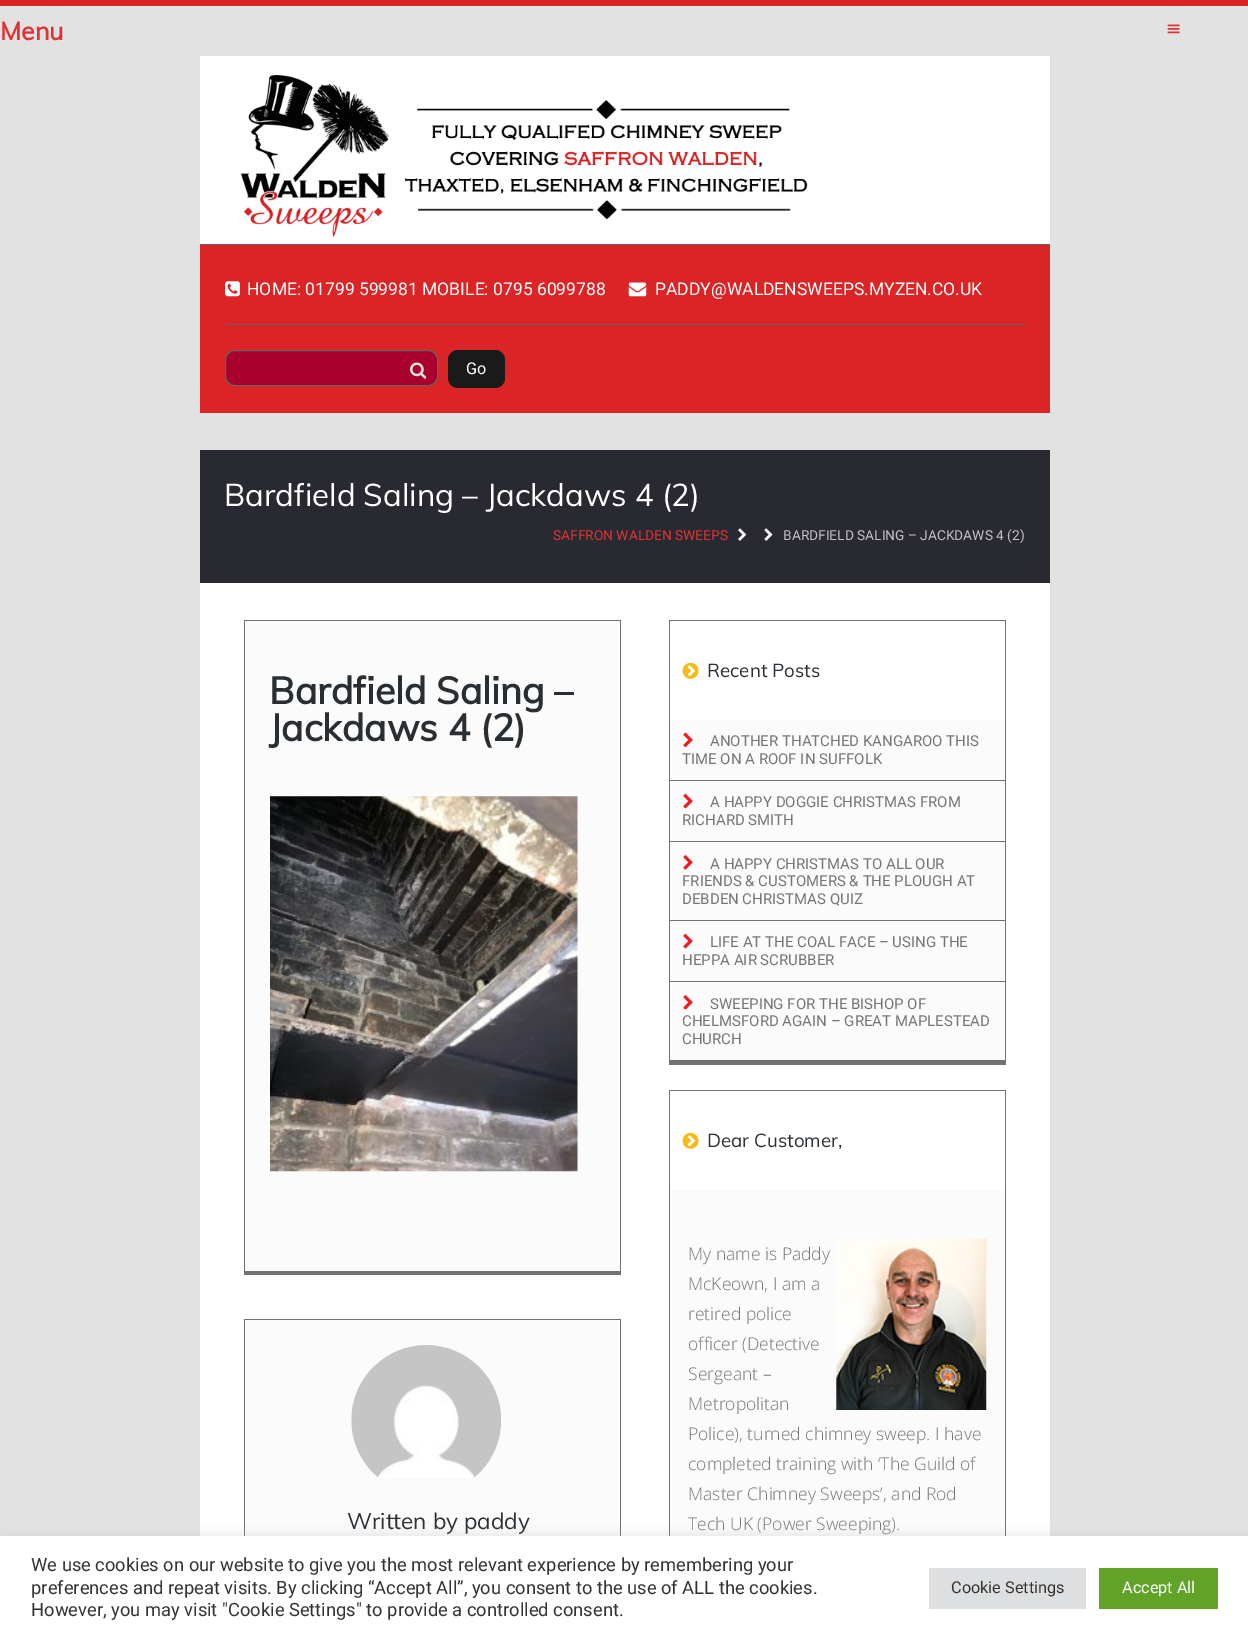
%!PS
<< /PageSize [1248 1638] /PageUsesTransparency true >> setpagedevice
/f/fill load def
/s/stroke load def
/q/gsave load def
/Q_/grestore load def
/C { dup -16 bitshift 255 div exch dup -8 bitshift 255 and 255 div exch 255 and 255 div setrgbcolor } def
/F { [ exch dup neg 0 0 3 -1 roll 0 0 ] selectfont } def
/T { moveto show } def
/R { rectfill } def
/A { dup .setfillconstantalpha .setstrokeconstantalpha } def
/Q { 5 dict begin { /r /h /w /y /x } { exch def } forall
  x r add y moveto x w add y 2 copy h add r arct x w add y h add x 1 index r arct
  x y h add x y r arct x y 2 copy exch w add exch r arct closepath end } def
/S { 12 dict begin { /a /b /q /h /w /y /x } { exch def } forall gsave /was 0 def
  9 -2 -9 { dup b mul 4 div /e exch def 1 sub .425 mul 2.718 exch exp 1 add a .99 .min exch div /now exch def
    1 1 now sub 1 was sub div sub A /was now def
    w h .min e 2 mul add 0 gt { x e sub y e sub w e 2 mul add h e 2 mul add
      q e add b .6 mul add w h .min 2 div e add .min 0 .max Q fill } if } for grestore end } def
/I { 5 dict begin { /h /w /y /x /name } { exch def } forall
  gsave x y translate w h scale
  w h 8 [w 0 0 h 0 0] name (r) file false 3 colorimage grestore end } def
0 .pushpdf14devicefilter
0 1638 translate 1 -1 scale
4 setmiterlimit
16#E2E2E2 C
0 0 1248 1638 R
16#DB2426 C
0 0 1248 6 R
/Muli-Bold 25 F
16#DD3333 C
(Menu) 0 40 T
(1.rgb) 1167 24 13 10 I
16#FFFFFF C
200 56 850 188 R
16#636363 C
200 244 850 1 R
(2.rgb) 241 75 567 163 I
16#DB2426 C
200 245 850 168 R
16#636363 C
225 324 800 1 R
(3.rgb) 225 281 15 16 I
/Roboto-Regular 17.5 F
16#FFFFFF C
(HOME: 01799 599981 MOBILE: 0795 6099788) 247 295 T
(4.rgb) 628 282 19 15 I
(PADDY@WALDENSWEEPS.MYZEN.CO.UK) 655 295 T
16#AA002D C
225.5 350.5 212 35 9.5 Q q f Q_
16#636363 C
s
(5.rgb) 410 362 17 17 I
16#000000 C
448 350 57 38 10 Q f
0.1 A
16#FFFFFF C
448 350 57 38 10 Q f
/Roboto-Regular 16.25 F
1 A
(Go) 466 374 T
16#292932 C
200 450 850 133 R
/Muli-Regular 31.25 F
16#FFFFFF C
(Bardfield Saling – Jackdaws 4 \(2\)) 224 506 T
/Roboto-Regular 13.75 F
16#DD3333 C
(SAFFRON WALDEN SWEEPS) 553 540 T
(6.rgb) 738 528 9 13 I
(7.rgb) 764 528 9 13 I
16#C1C1C1 C
(BARDFIELD SALING – JACKDAWS 4 \(2\)) 783 540 T
16#FFFFFF C
200 583 850 953 R
16#FBFBFB C
245 621 375 650 R
16#727272 C
244 620 377 1 R
620 620 1 655 R
244 1271 377 4 R
244 620 1 655 R
/Muli-Bold 37.5 F
16#292E32 C
(Bardfield Saling –) 269 704 T
(Jackdaws 4 \(2\)) 269 741 T
(8.rgb) 270 796 308 376 I
16#FBFBFB C
670 720 335 340 R
16#727272 C
669 620 337 1 R
1005 620 1 445 R
669 1061 337 4 R
669 620 1 445 R
(9.rgb) 682 662 17 17 I
/Muli-Regular 18.75 F
16#292E32 C
(Recent Posts) 707 677 T
16#727272 C
670 780 335 1 R
(10.rgb) 683 732 10 16 I
/Roboto-Regular 15 F
16#767676 C
(ANOTHER THATCHED KANGAROO THIS) 710 746 T
(TIME ON A ROOF IN SUFFOLK) 682 764 T
16#727272 C
670 841 335 1 R
(11.rgb) 683 793 10 16 I
16#767676 C
(A HAPPY DOGGIE CHRISTMAS FROM) 710 807 T
(RICHARD SMITH) 682 825 T
16#727272 C
670 920 335 1 R
(12.rgb) 683 855 10 15 I
16#767676 C
(A HAPPY CHRISTMAS TO ALL OUR) 710 869 T
(FRIENDS & CUSTOMERS & THE PLOUGH AT) 682 886 T
(DEBDEN CHRISTMAS QUIZ) 682 904 T
16#727272 C
670 981 335 1 R
(11.rgb) 683 933 10 16 I
16#767676 C
(LIFE AT THE COAL FACE – USING THE) 710 947 T
(HEPPA AIR SCRUBBER) 682 965 T
16#727272 C
670 1060 335 1 R
(12.rgb) 683 995 10 15 I
16#767676 C
(SWEEPING FOR THE BISHOP OF) 710 1009 T
(CHELMSFORD AGAIN – GREAT MAPLESTEAD) 682 1026 T
(CHURCH) 682 1044 T
16#FBFBFB C
670 1190 335 346 R
16#727272 C
669 1090 337 1 R
1005 1090 1 446 R
669 1090 1 446 R
(9.rgb) 682 1132 17 17 I
/Muli-Regular 18.75 F
16#292E32 C
(Dear Customer,) 707 1147 T
/OpenSans-Light 17.5 F
16#767676 C
(My name is Paddy) 688 1260 T
(13.rgb) 836 1238 151 172 I
(McKeown, I am a) 688 1290 T
(retired police) 688 1320 T
(officer \(Detective) 688 1350 T
(Sergeant –) 688 1380 T
(Metropolitan) 688 1410 T
(Police\), turned chimney sweep. I have) 688 1440 T
(completed training with ‘The Guild of) 688 1470 T
(Master Chimney Sweeps’, and Rod) 688 1500 T
(Tech UK \(Power Sweeping\).) 688 1530 T
16#FBFBFB C
245 1320 375 216 R
16#727272 C
244 1319 377 1 R
620 1319 1 217 R
244 1319 1 217 R
(14.rgb) 351 1345 150 133 I
/Muli-Regular 22.5 F
16#292E32 C
(Written by paddy) 347 1529 T
16#ACABAB C
0 1535 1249 103 0 6 .3 S
16#FFFFFF C
0 1536 1248 102 R
/Roboto-Regular 18.35 F
16#333333 C
(We use cookies on our website to give you the most relevant experience by remembering your) 31 1571 T
(preferences and repeat visits. By clicking “Accept All”, you consent to the use of ALL the cookies.) 31 1594 T
(However, you may visit "Cookie Settings" to provide a controlled consent.) 31 1616 T
16#DEDFE0 C
929 1568 157 41 R
/Roboto-Regular 16.25 F
16#333333 C
(Cookie Settings) 951 1593 T
16#61A229 C
1099 1568 119 41 R
16#FFFFFF C
(Accept All) 1122 1593 T
.poppdf14devicefilter showpage
